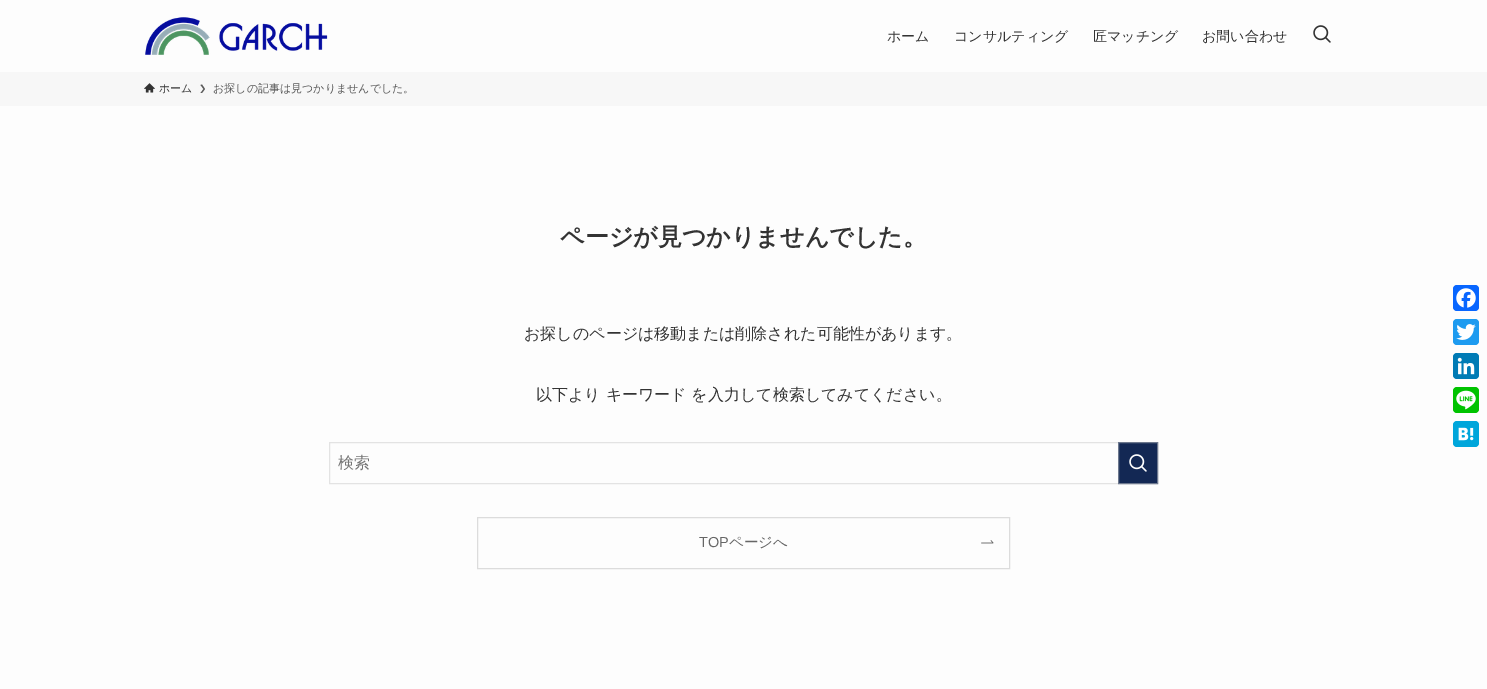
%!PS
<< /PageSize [1487 689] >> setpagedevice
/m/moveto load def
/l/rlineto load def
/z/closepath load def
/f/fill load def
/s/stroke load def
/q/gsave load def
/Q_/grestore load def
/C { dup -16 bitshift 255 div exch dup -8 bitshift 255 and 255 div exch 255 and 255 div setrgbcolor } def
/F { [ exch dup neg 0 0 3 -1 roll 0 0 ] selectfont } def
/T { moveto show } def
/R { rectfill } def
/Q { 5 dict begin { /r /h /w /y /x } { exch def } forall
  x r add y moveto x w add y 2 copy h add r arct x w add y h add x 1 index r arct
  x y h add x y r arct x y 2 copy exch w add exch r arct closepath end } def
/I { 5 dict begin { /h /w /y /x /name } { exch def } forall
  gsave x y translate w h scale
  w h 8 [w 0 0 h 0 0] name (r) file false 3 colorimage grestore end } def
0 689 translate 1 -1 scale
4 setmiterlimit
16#FDFDFD C
0 0 1487 689 R
(1.rgb) 145 17 183 38 I
/WenQuanYiZenHei-Medium 14 F
16#333333 C
(ホーム) 887 41 T
(コンサルティング) 954 41 T
(匠マッチング) 1093 41 T
(お問い合わせ) 1202 41 T
(2.rgb) 1313 25 18 18 I
16#F7F7F7 C
0 72 1487 34 R
(3.rgb) 144 83 11 10 I
/WenQuanYiZenHei-Medium 11 F
16#333333 C
(ホーム) 159 92 T
16#5A5A5A C
202 84.5 m -1.5 .5 l 3 4 l -3 4 l 1.5 0 l 3 -4 l z f
(お探しの記事は見つかりませんでした。) 213 92 T
/WenQuanYiZenHei-Bold 24 F
16#333333 C
(ページが見つかりませんでした。) 560 245 T
/WenQuanYiZenHei-Medium 16 F
(お探しのページは移動または削除された可能性があります。) 524 339 T
(以下より キーワード を入力して検索してみてください。) 536 400 T
16#E3E3E3 C
329.5 442.5 828 41 rectstroke
16#757575 C
(検索) 338 468 T
16#132854 C
1118.5 442.5 m 39 0 l 0 41 l -39 0 l z q f Q_
16#6D788E C
s
(4.rgb) 1129 454 18 18 I
16#DCDCDC C
477.5 517.5 532 51 rectstroke
/LiberationSans-Regular 14.5 F
16#666666 C
(TOP) 699 547 T
/WenQuanYiZenHei-Medium 14.5 F
(ページへ) 729 547 T
(5.rgb) 981 540 13 4 I
16#0866FF C
1453 285 26 26 4 Q f
(6.rgb) 1456 288 20 20 I
16#1D9BF0 C
1453 319 26 26 4 Q f
(7.rgb) 1456 324 20 16 I
16#007BB5 C
1453 353 26 26 4 Q f
(8.rgb) 1457 357 18 18 I
16#00C300 C
1453 387 26 26 4 Q f
(9.rgb) 1456 390 20 20 I
16#00A6DB C
1453 421 26 26 4 Q f
(10.rgb) 1458 427 16 14 I
showpage
